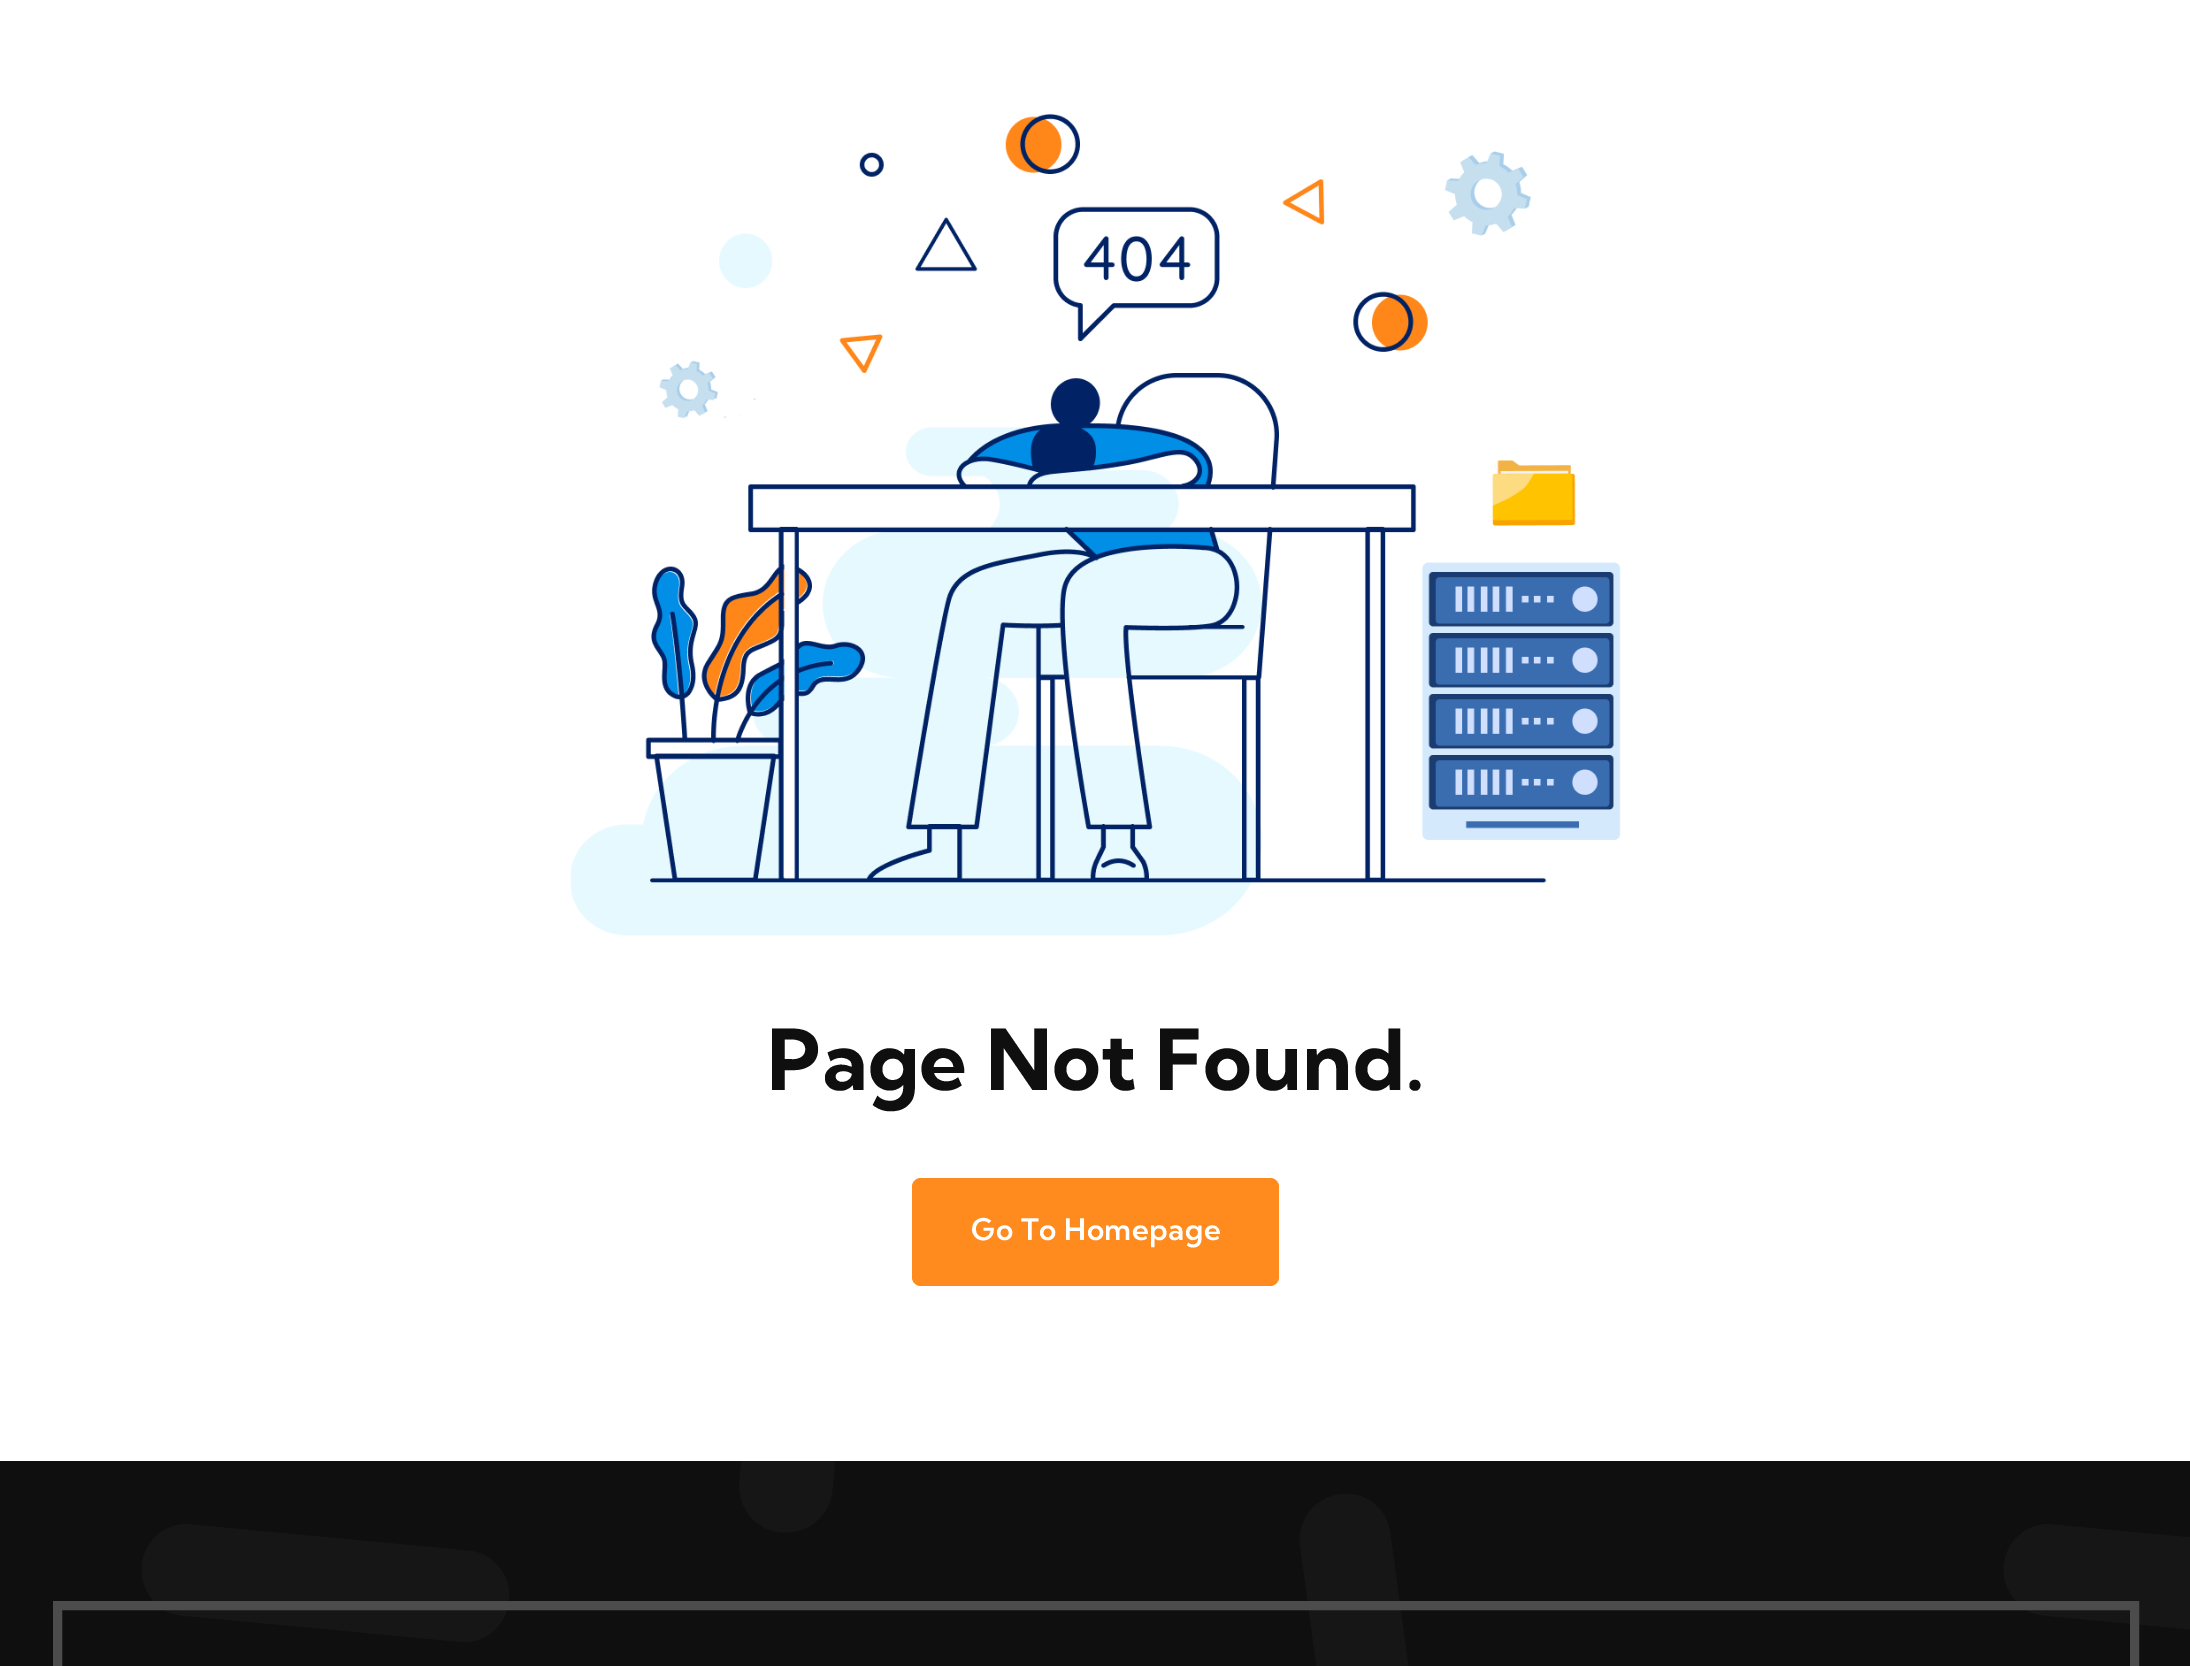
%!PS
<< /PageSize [2190 1666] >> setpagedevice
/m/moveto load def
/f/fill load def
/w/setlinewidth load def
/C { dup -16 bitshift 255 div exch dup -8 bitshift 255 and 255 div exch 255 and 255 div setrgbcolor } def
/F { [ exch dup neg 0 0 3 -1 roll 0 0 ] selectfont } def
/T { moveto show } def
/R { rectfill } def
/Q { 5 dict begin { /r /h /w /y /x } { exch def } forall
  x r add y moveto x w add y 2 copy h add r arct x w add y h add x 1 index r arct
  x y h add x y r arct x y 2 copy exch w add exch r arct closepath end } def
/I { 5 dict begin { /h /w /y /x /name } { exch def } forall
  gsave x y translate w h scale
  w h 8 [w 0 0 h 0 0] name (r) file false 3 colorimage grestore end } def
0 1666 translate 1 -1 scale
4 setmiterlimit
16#FFFFFF C
0 0 2190 1666 R
(1.rgb) 570 113 1051 823 I
/KumbhSans-Bold 84 F
16#0F0F0F C
(Page Not Found.) 767 1090 T
16#FF8B1E C
912 1178 367 108 9 Q f
/KumbhSans-SemiBold 29.75 F
16#FFFFFF C
971 1240 m .5 0 (Go To Homepage) ashow
16#0F0F0F C
0 1461 2190 205 R
(2.rgb) 142 1461 2048 205 I
16#4C4C4C C
9 w
57.5 1605.5 2077 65 rectstroke
showpage
